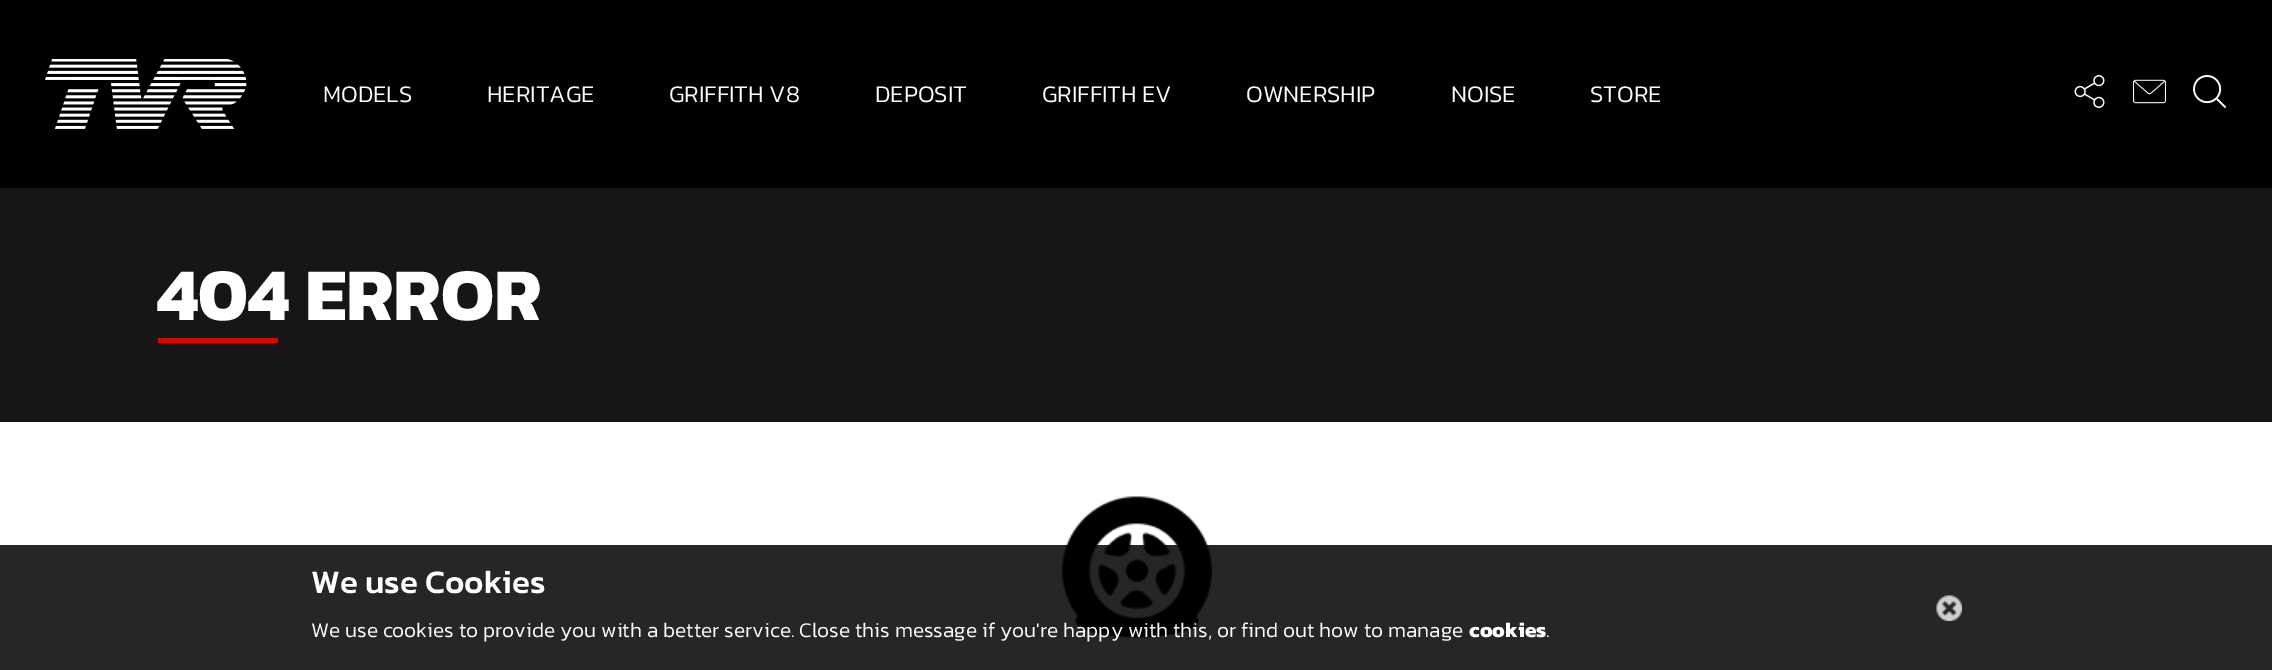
%!PS
<< /PageSize [2272 670] /PageUsesTransparency true >> setpagedevice
/C { dup -16 bitshift 255 div exch dup -8 bitshift 255 and 255 div exch 255 and 255 div setrgbcolor } def
/F { [ exch dup neg 0 0 3 -1 roll 0 0 ] selectfont } def
/T { moveto show } def
/R { rectfill } def
/A { dup .setfillconstantalpha .setstrokeconstantalpha } def
/I { 5 dict begin { /h /w /y /x /name } { exch def } forall
  gsave x y translate w h scale
  w h 8 [w 0 0 h 0 0] name (r) file false 3 colorimage grestore end } def
0 .pushpdf14devicefilter
0 670 translate 1 -1 scale
4 setmiterlimit
16#000000 C
0 0 2272 670 R
(1.rgb) 45 59 202 70 I
/Kanit-Light 24 F
16#FFFFFF C
(MODELS) 323 102 T
(HERITAGE) 487 102 T
(GRIFFITH V8) 669 102 T
(DEPOSIT) 875 102 T
(GRIFFITH EV) 1042 102 T
(OWNERSHIP) 1246 102 T
(NOISE) 1451 102 T
(STORE) 1590 102 T
(2.rgb) 2074 75 31 33 I
(3.rgb) 2133 79 33 25 I
(4.rgb) 2193 75 33 33 I
0 422 2272 248 R
16#171515 C
0 188 2272 234 R
/Kanit-Bold 75 F
16#FFFFFF C
(404 ERROR) 157 320 T
16#DB0202 C
158 338 120 5 R
(5.rgb) 1062 496 150 142 I
0.85 A
16#000000 C
0 545 2272 125 R
/Kanit-Medium 33 F
1 A
16#FFFFFF C
(We use Cookies) 311 593 T
/Kanit-Light 21 F
(We use cookies to provide you with a better service. Close this message if you're happy with this, or find out how to manage) 311 637 T
/Kanit-Bold 21 F
(cookies) 1469 637 T
/Kanit-Light 21 F
(.) 1546 637 T
(6.rgb) 1936 595 26 26 I
.poppdf14devicefilter showpage
